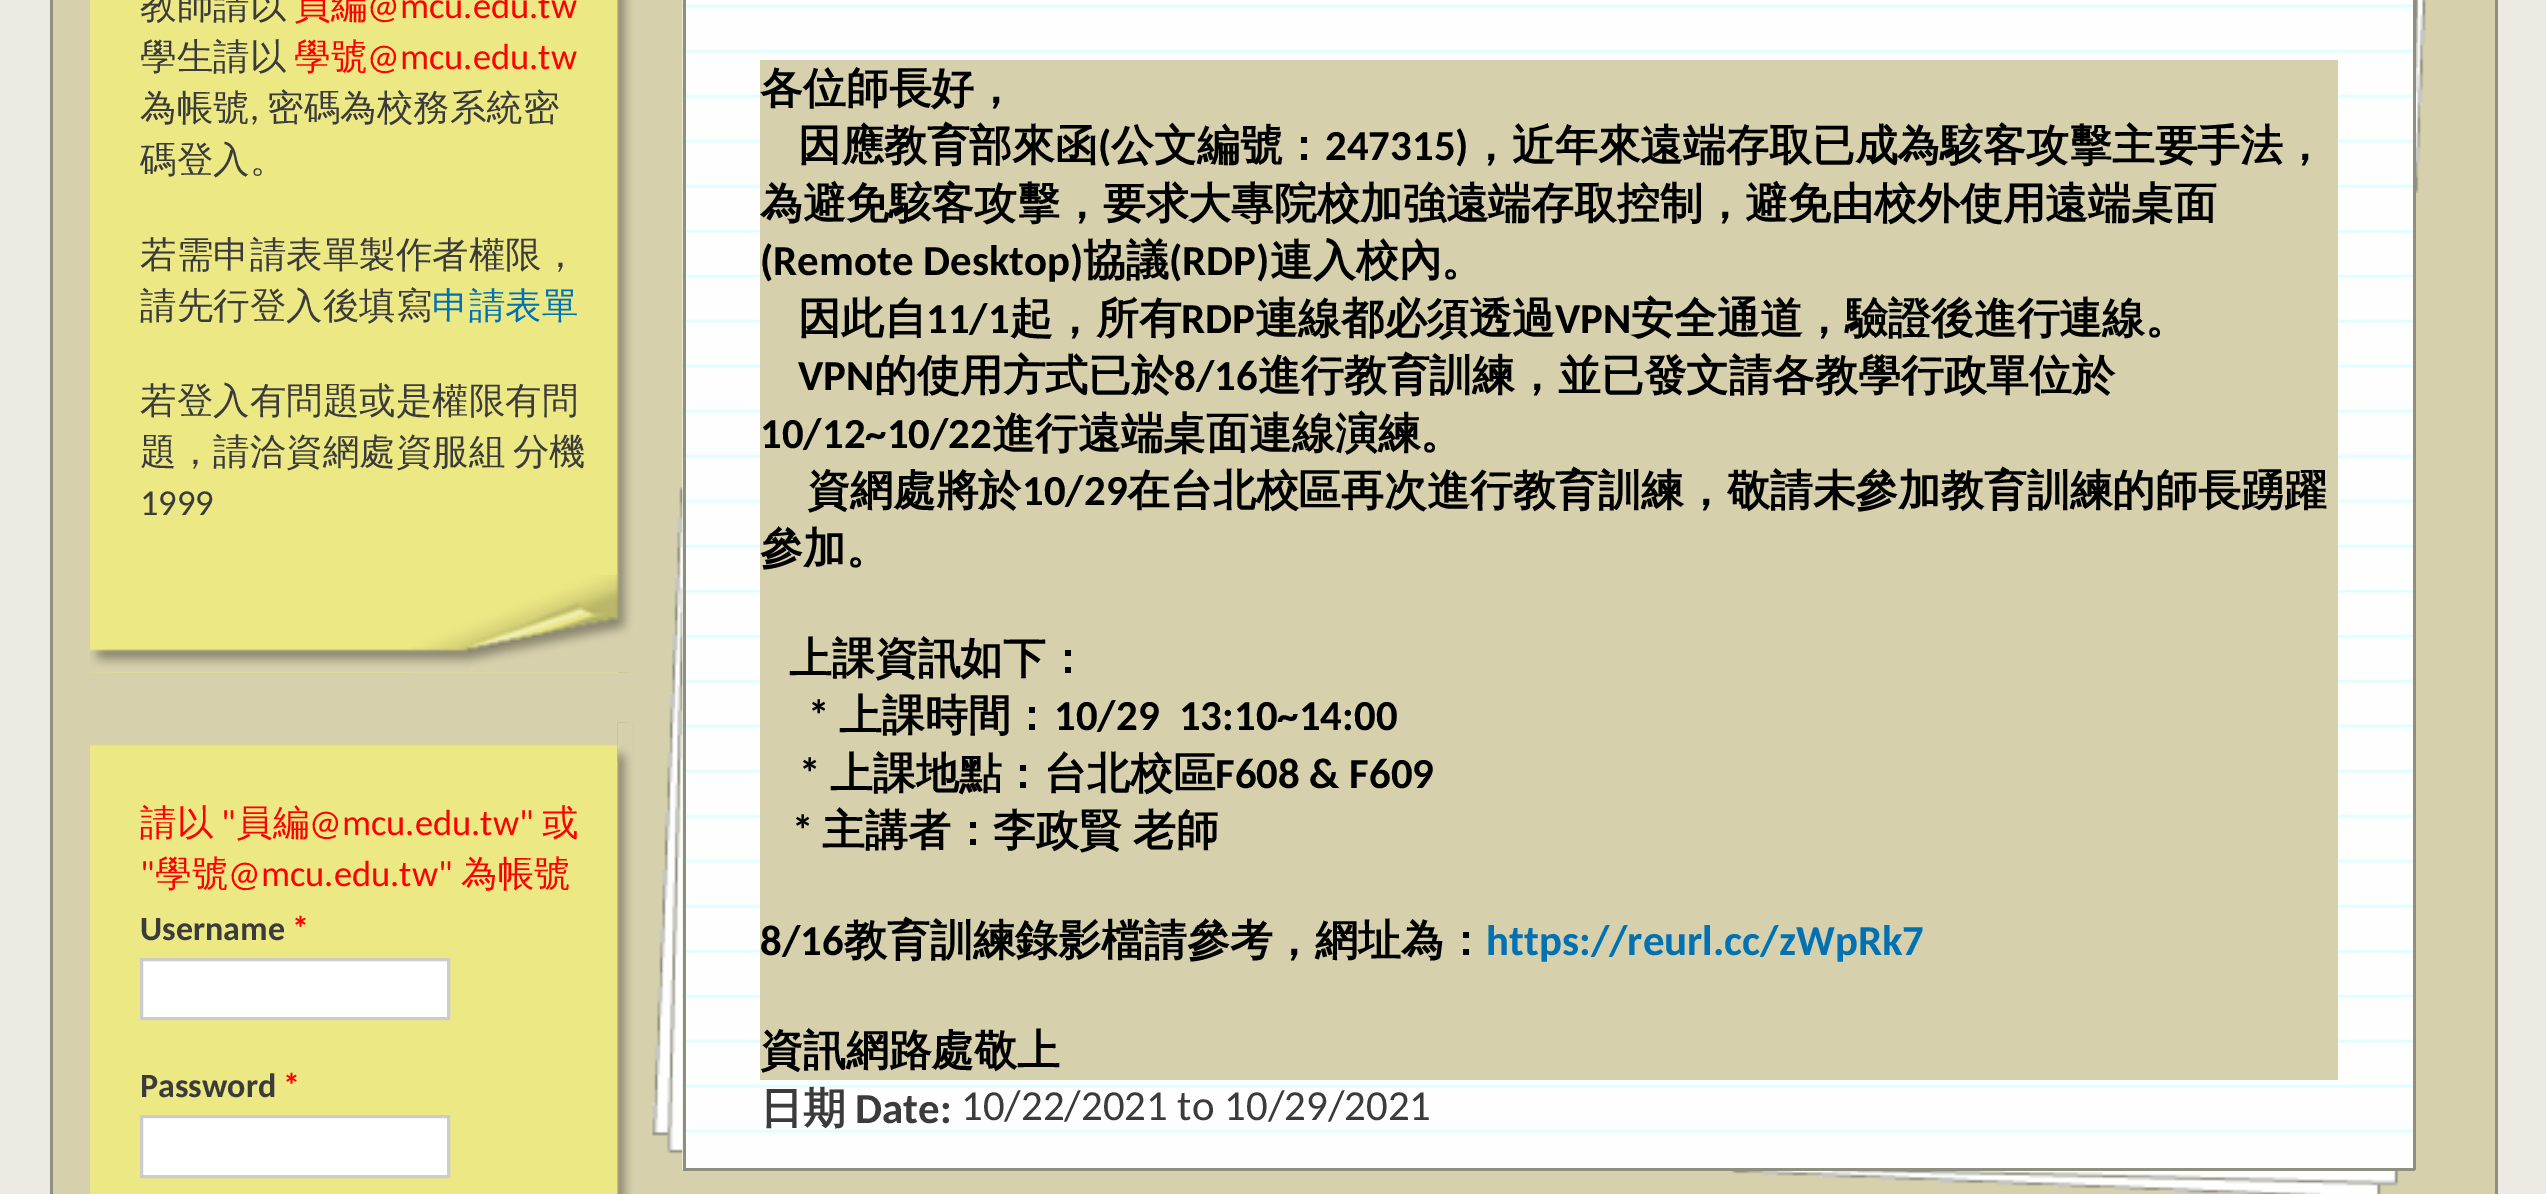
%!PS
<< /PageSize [2546 1194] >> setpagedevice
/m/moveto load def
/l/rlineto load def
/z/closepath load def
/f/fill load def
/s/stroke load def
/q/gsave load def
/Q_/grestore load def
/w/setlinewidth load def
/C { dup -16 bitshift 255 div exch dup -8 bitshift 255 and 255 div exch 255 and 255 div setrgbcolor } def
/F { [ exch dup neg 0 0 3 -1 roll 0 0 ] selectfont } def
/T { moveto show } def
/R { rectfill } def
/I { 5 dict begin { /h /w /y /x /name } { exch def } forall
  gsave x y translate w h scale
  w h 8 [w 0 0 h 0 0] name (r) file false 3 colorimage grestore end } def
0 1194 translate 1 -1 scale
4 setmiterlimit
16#EDEAE3 C
0 0 2546 1194 R
16#D6D0AC C
53 0 2442 1194 R
16#8E8F7E C
2495 0 3 1194 R
50 0 3 1194 R
16#ECE884 C
90 0 550 673 R
(1.rgb) 90 649 550 24 I
(2.rgb) 617 0 23 673 I
(3.rgb) 90 649 23 24 I
(4.rgb) 410 575 230 98 I
/WenQuanYiZenHei-Medium 36.5 F
16#3B3B3B C
(教師請以) 140 18 T
16#FF0000 C
(員編) 294 18 T
/Carlito-Regular 36.5 F
(@mcu.edu.tw) 367 18 T
/WenQuanYiZenHei-Medium 36.5 F
16#3B3B3B C
(學生請以) 140 69 T
16#FF0000 C
(學號) 294 69 T
/Carlito-Regular 36.5 F
(@mcu.edu.tw) 367 69 T
/WenQuanYiZenHei-Medium 36.5 F
16#3B3B3B C
(為帳號) 140 120 T
/Carlito-Regular 36.5 F
(,) 250 120 T
/WenQuanYiZenHei-Medium 36.5 F
(密碼為校務系統密) 267 120 T
(碼登入。) 140 172 T
(若需申請表單製作者權限，) 140 267 T
(請先行登入後填寫) 140 318 T
16#0071B3 C
(申請表單) 432 318 T
16#3B3B3B C
(若登入有問題或是權限有問) 140 413 T
140 464 m -3 0 32 (題，請洽資網處資服組 分機) widthshow
/Carlito-Regular 36.5 F
(1999) 140 515 T
16#ECE884 C
90 746 528 448 R
(5.rgb) 90 723 528 23 I
(6.rgb) 617 722 23 472 I
(7.rgb) 617 722 15 41 I
/WenQuanYiZenHei-Medium 36.5 F
16#FF0000 C
(請以) 140 835 T
/Carlito-Regular 36.5 F
(") 221 835 T
/WenQuanYiZenHei-Medium 36.5 F
(員編) 236 835 T
/Carlito-Regular 36.5 F
(@mcu.edu.tw") 309 835 T
/WenQuanYiZenHei-Medium 36.5 F
(或) 542 835 T
/Carlito-Regular 36.5 F
(") 140 886 T
/WenQuanYiZenHei-Medium 36.5 F
(學號) 155 886 T
/Carlito-Regular 36.5 F
(@mcu.edu.tw") 228 886 T
/WenQuanYiZenHei-Medium 36.5 F
(為帳號) 461 886 T
/Carlito-Bold 34 F
16#3B3B3B C
(Username) 140 940 T
16#FF0000 C
(*) 292 940 T
16#FFFFFF C
141.5 959.5 m 307 0 l 0 59 l -307 0 l z q f Q_
16#CCCCCC C
3 w
s
16#3B3B3B C
(Password) 140 1097 T
16#FF0000 C
(*) 283 1097 T
16#FFFFFF C
141.5 1116.5 m 307 0 l 0 60 l -307 0 l z q f Q_
16#CCCCCC C
s
(8.rgb) 1732 1171 667 23 I
(9.rgb) 652 487 31 667 I
(10.rgb) 2416 0 10 193 I
(11.rgb) 682 0 1731 1170 I
16#8E8F7E C
2413 0 3 1170 R
683 1168 1732 3 R
683 0 3 1170 R
16#D6D0AC C
760 60 1578 1020 R
/WenQuanYiZenHei-Bold 42.85 F
16#000000 C
(各位師長好，) 760 103 T
(因應教育部來函) 798 160 T
/Carlito-Bold 42.85 F
(\() 1098 160 T
/WenQuanYiZenHei-Bold 42.85 F
(公文編號：) 1111 160 T
/Carlito-Bold 42.85 F
(247315\)) 1325 160 T
/WenQuanYiZenHei-Bold 42.85 F
(，近年來遠端存取已成為駭客攻擊主要手法，) 1469 160 T
(為避免駭客攻擊，要求大專院校加強遠端存取控制，避免由校外使用遠端桌面) 760 218 T
/Carlito-Bold 42.85 F
(\(Remote Desktop\)) 760 275 T
/WenQuanYiZenHei-Bold 42.85 F
(協議) 1083 275 T
/Carlito-Bold 42.85 F
(\(RDP\)) 1169 275 T
/WenQuanYiZenHei-Bold 42.85 F
(連入校內。) 1270 275 T
(因此自) 798 333 T
/Carlito-Bold 42.85 F
(11/1) 926 333 T
/WenQuanYiZenHei-Bold 42.85 F
(起，所有) 1010 333 T
/Carlito-Bold 42.85 F
(RDP) 1181 333 T
/WenQuanYiZenHei-Bold 42.85 F
(連線都必須透過) 1255 333 T
/Carlito-Bold 42.85 F
(VPN) 1555 333 T
/WenQuanYiZenHei-Bold 42.85 F
(安全通道，驗證後進行連線。) 1631 333 T
/Carlito-Bold 42.85 F
(VPN) 798 390 T
/WenQuanYiZenHei-Bold 42.85 F
(的使用方式已於) 874 390 T
/Carlito-Bold 42.85 F
(8/16) 1174 390 T
/WenQuanYiZenHei-Bold 42.85 F
(進行教育訓練，並已發文請各教學行政單位於) 1258 390 T
/Carlito-Bold 42.85 F
(10/12~10/22) 760 448 T
/WenQuanYiZenHei-Bold 42.85 F
(進行遠端桌面連線演練。) 992 448 T
(資網處將於) 807 505 T
/Carlito-Bold 42.85 F
(10/29) 1022 505 T
/WenQuanYiZenHei-Bold 42.85 F
(在台北校區再次進行教育訓練，敬請未參加教育訓練的師長踴躍) 1127 505 T
(參加。) 760 563 T
(上課資訊如下：) 789 673 T
/Carlito-Bold 42.85 F
(*) 808 730 T
/WenQuanYiZenHei-Bold 42.85 F
(上課時間：) 839 730 T
/Carlito-Bold 42.85 F
(10/29  13:10~14:00) 1054 730 T
(*) 799 788 T
/WenQuanYiZenHei-Bold 42.85 F
(上課地點：台北校區) 830 788 T
/Carlito-Bold 42.85 F
(F608 & F609) 1215 788 T
(*) 792 845 T
/WenQuanYiZenHei-Bold 42.85 F
822 845 m -2 0 32 (主講者：李政賢 老師) widthshow
/Carlito-Bold 42.85 F
(8/16) 760 955 T
/WenQuanYiZenHei-Bold 42.85 F
(教育訓練錄影檔請參考，網址為：) 844 955 T
/Carlito-Bold 42.85 F
16#0071B3 C
(https://reurl.cc/zWpRk7) 1486 955 T
/WenQuanYiZenHei-Bold 42.85 F
16#000000 C
(資訊網路處敬上) 760 1065 T
16#3B3B3B C
(日期) 760 1123 T
/Carlito-Bold 42.85 F
(Date:) 855 1123 T
/Carlito-Regular 42.85 F
(10/22/2021 to 10/29/2021) 961 1120 T
showpage
